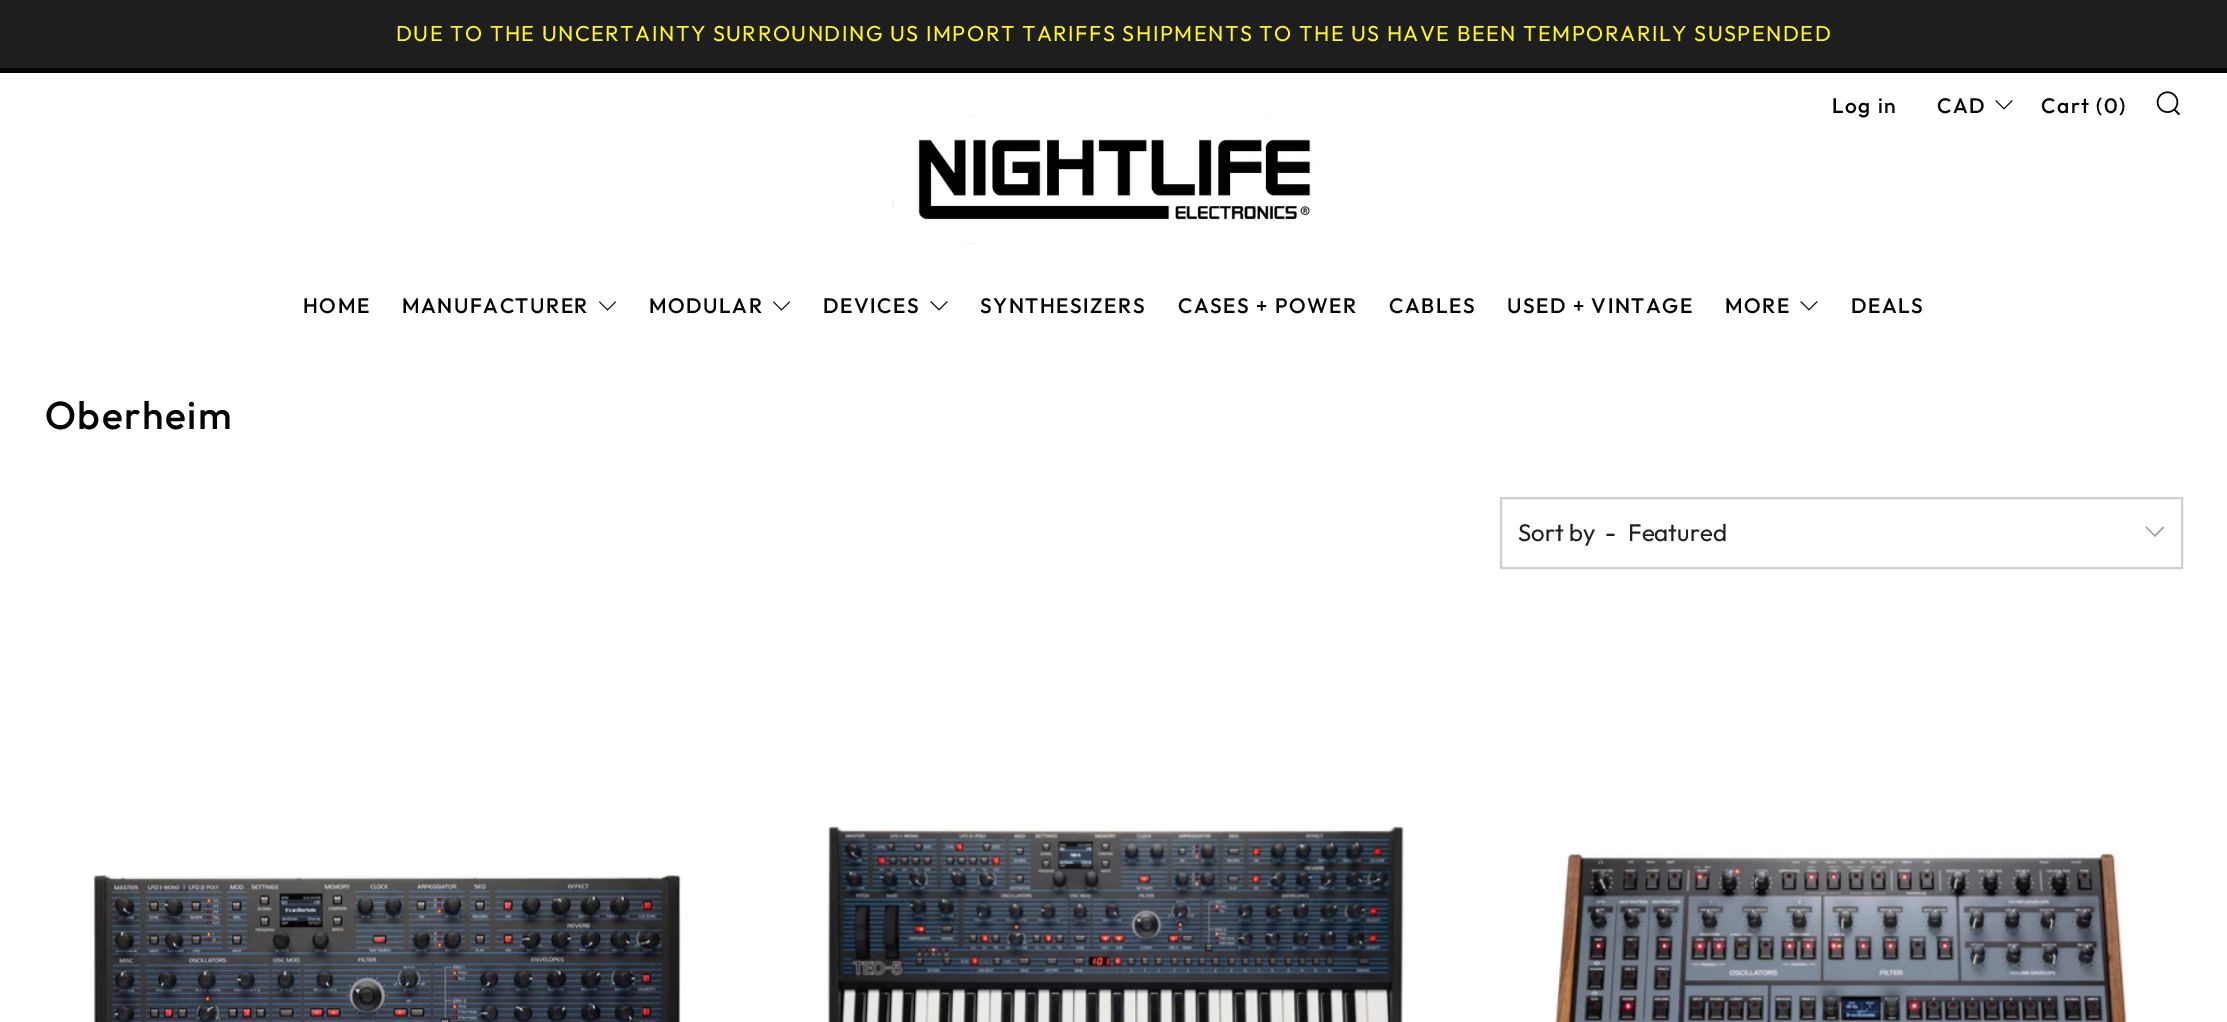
%!PS
<< /PageSize [2227 1022] >> setpagedevice
/m/moveto load def
/l/rlineto load def
/z/closepath load def
/f/fill load def
/w/setlinewidth load def
/C { dup -16 bitshift 255 div exch dup -8 bitshift 255 and 255 div exch 255 and 255 div setrgbcolor } def
/F { [ exch dup neg 0 0 3 -1 roll 0 0 ] selectfont } def
/T { moveto show } def
/R { rectfill } def
/I { 5 dict begin { /h /w /y /x /name } { exch def } forall
  gsave x y translate w h scale
  w h 8 [w 0 0 h 0 0] name (r) file false 3 colorimage grestore end } def
0 1022 translate 1 -1 scale
4 setmiterlimit
16#FFFFFF C
0 0 2227 1022 R
16#1E1E1E C
0 0 2227 68 R
/Outfit-Regular 21.6 F
16#FFF91B C
396 41 m 1.5 0 (DUE TO THE UNCERTAINTY SURROUNDING US IMPORT TARIFFS SHIPMENTS TO THE US HAVE BEEN TEMPORARILY SUSPENDED) ashow
16#050505 C
0 68 2227 5 R
/Outfit-Medium 21 F
1832 113 m 1.5 0 (Log in) ashow
1937 113 m 1.5 0 (CAD) ashow
1996 100 m -.5 1 l 8.5 8.5 l 8.5 -8.5 l -.5 -1 l -8 8 l z f
2041 113 m 1.5 0 (Cart \(0\)) ashow
(1.rgb) 2156 91 25 25 I
303 313 m 1.5 0 (HOME) ashow
402 313 m 1.5 0 (MANUFACTURER) ashow
(2.rgb) 599 301 17 10 I
649 313 m 1.5 0 (MODULAR) ashow
(2.rgb) 773 301 17 10 I
823 313 m 1.5 0 (DEVICES) ashow
931 301 m -.5 1 l 8.5 8.5 l 8.5 -8.5 l -.5 -1 l -8 8 l z f
980 313 m 1.5 0 (SYNTHESIZERS) ashow
1178 313 m 1.5 0 (CASES + POWER) ashow
1389 313 m 1.5 0 (CABLES) ashow
1507 313 m 1.5 0 (USED + VINTAGE) ashow
1725 313 m 1.5 0 (MORE) ashow
1801 301 m -.5 1 l 8.5 8.5 l 8.5 -8.5 l -.5 -1 l -8 8 l z f
1851 313 m 1.5 0 (DEALS) ashow
(3.rgb) 892 115 445 129 I
/Outfit-Medium 39 F
45 429 m 1.5 0 (Oberheim) ashow
16#CFCFCF C
2 w
1501 498 681 70 rectstroke
/Outfit-Regular 24 F
16#212121 C
(Sort by) 1518 541 T
(-) 1605 541 T
(Featured) 1628 541 T
16#A0A0A0 C
2146.5 526.5 m -1 1 l 9.5 9.5 l 9 -9.5 l -1 -1 l -8 8.5 l z f
(4.rgb) 93 874 588 148 I
(5.rgb) 827 824 578 198 I
(6.rgb) 1553 853 575 169 I
showpage
